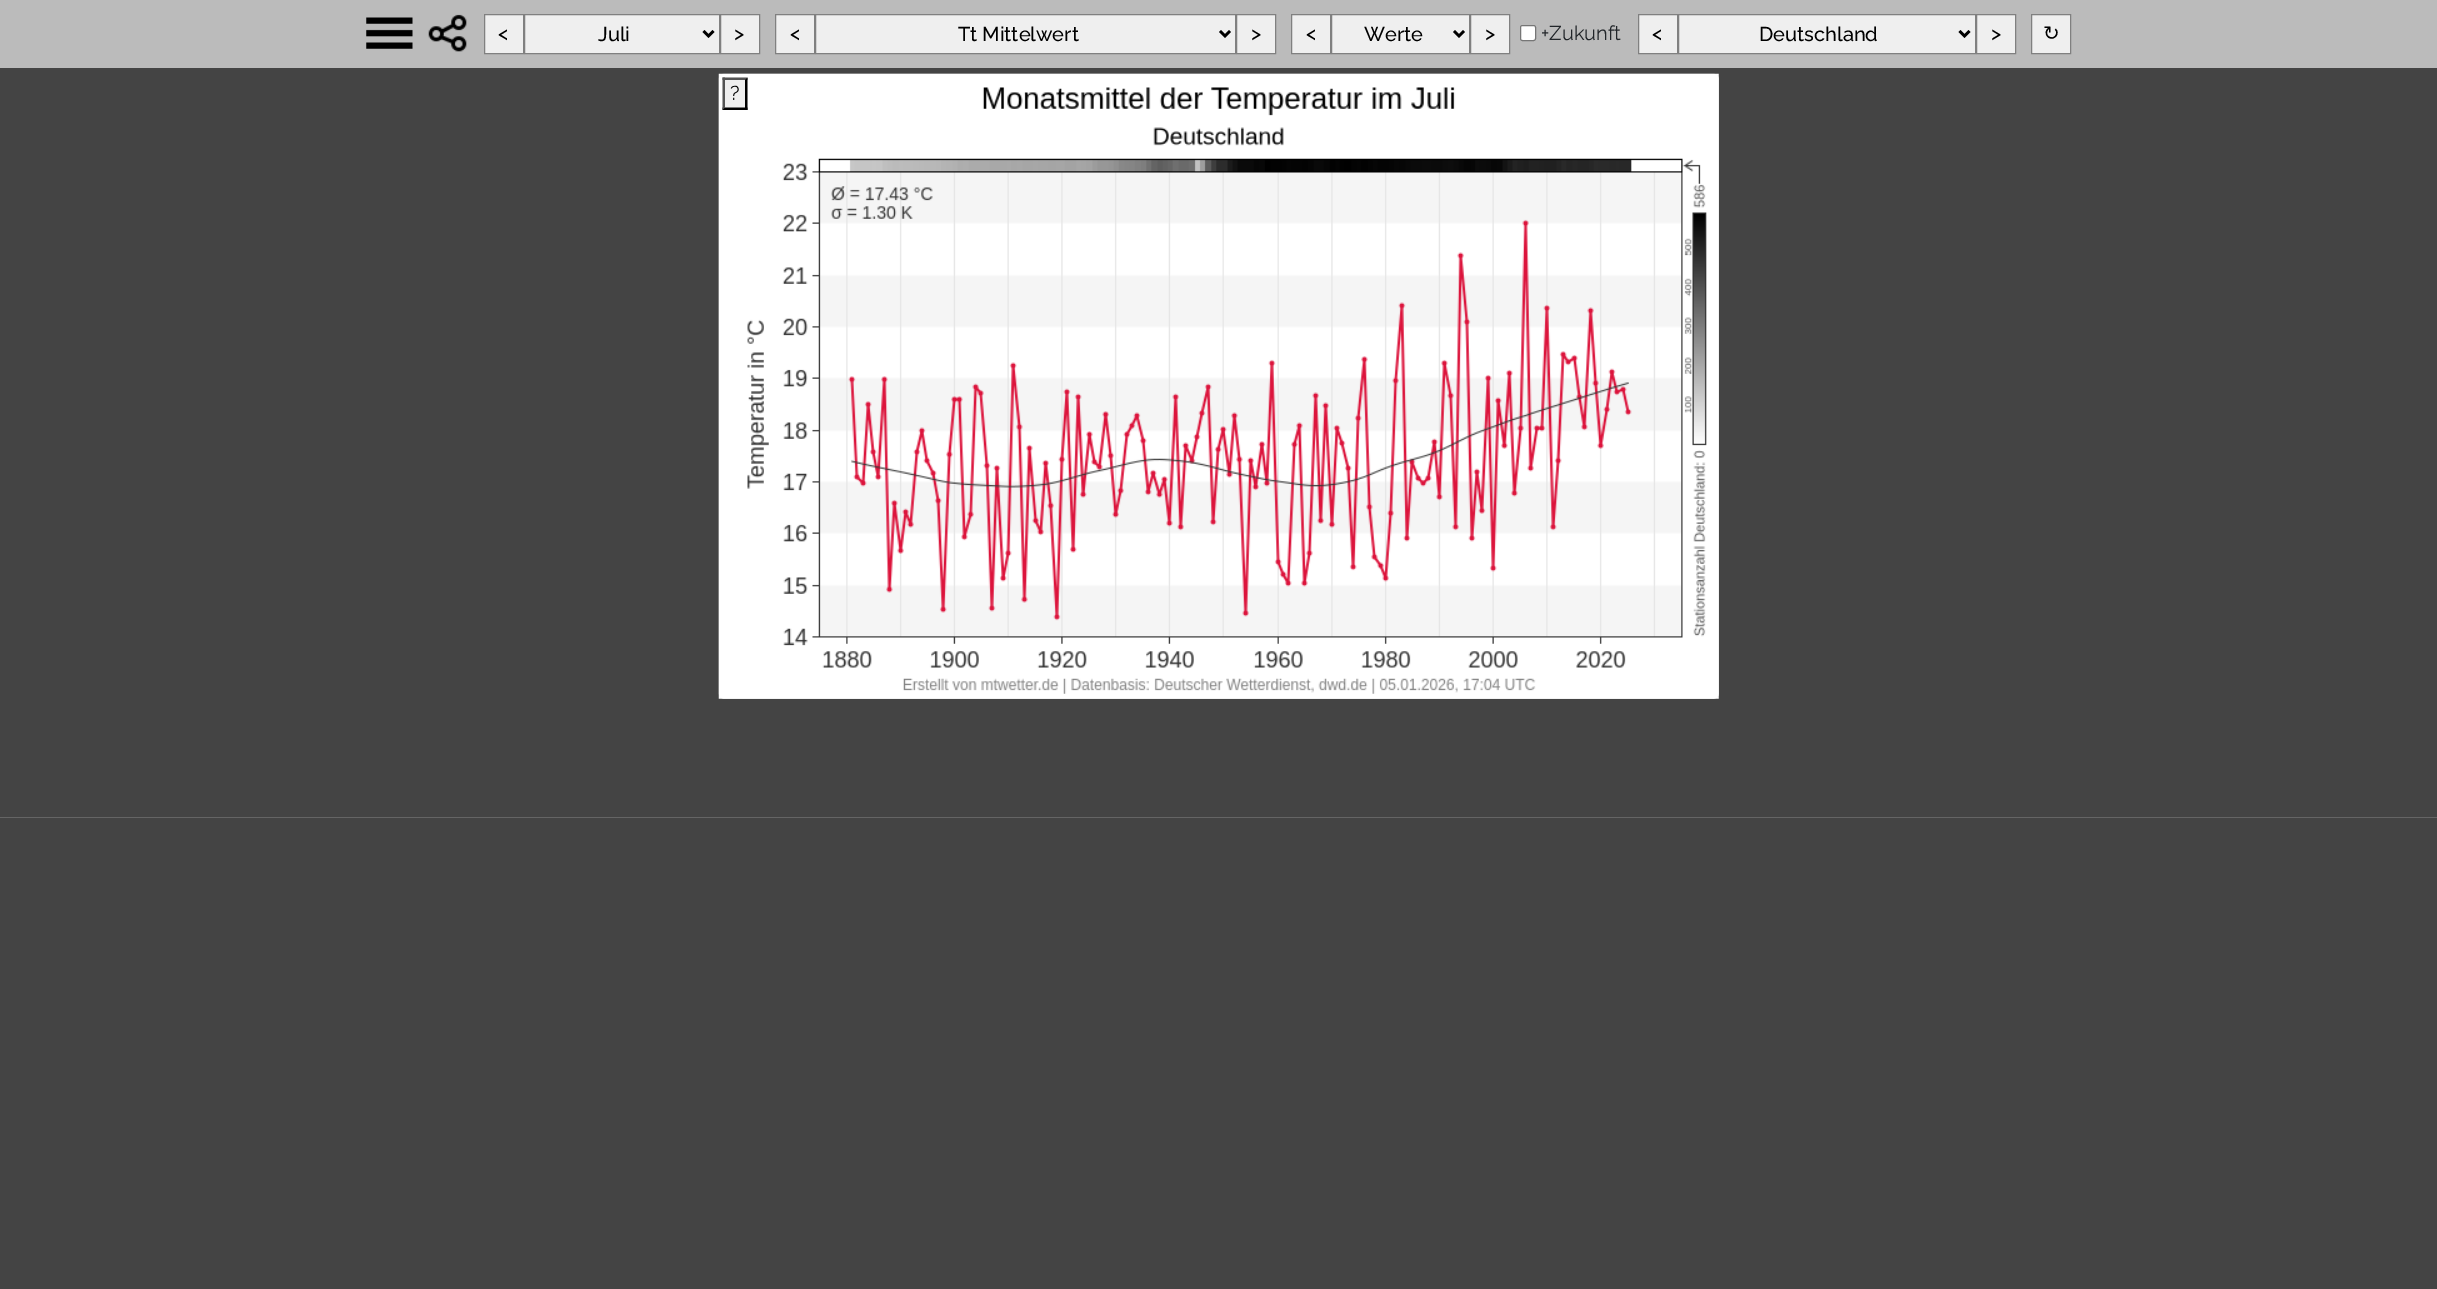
%!PS
<< /PageSize [2437 1289] >> setpagedevice
/m/moveto load def
/l/rlineto load def
/z/closepath load def
/f/fill load def
/s/stroke load def
/q/gsave load def
/Q_/grestore load def
/w/setlinewidth load def
/C { dup -16 bitshift 255 div exch dup -8 bitshift 255 and 255 div exch 255 and 255 div setrgbcolor } def
/F { [ exch dup neg 0 0 3 -1 roll 0 0 ] selectfont } def
/T { moveto show } def
/R { rectfill } def
/Q { 5 dict begin { /r /h /w /y /x } { exch def } forall
  x r add y moveto x w add y 2 copy h add r arct x w add y h add x 1 index r arct
  x y h add x y r arct x y 2 copy exch w add exch r arct closepath end } def
/I { 5 dict begin { /h /w /y /x /name } { exch def } forall
  gsave x y translate w h scale
  w h 8 [w 0 0 h 0 0] name (r) file false 3 colorimage grestore end } def
0 1289 translate 1 -1 scale
4 setmiterlimit
16#444444 C
0 0 2437 1289 R
16#BBBBBB C
0 0 2437 68 R
(1.rgb) 366 17 47 32 I
(2.rgb) 428 14 39 38 I
16#EFEFEF C
484.5 14.5 m 39 0 l 0 39 l -39 0 l z q f Q_
16#808080 C
s
/Raleway-Medium 20 F
16#000000 C
(<) 498 40 T
16#EFEFEF C
524.5 14.5 m 195 0 l 0 39 l -195 0 l z q f Q_
16#808080 C
s
16#000000 C
2.5 w
703.5 31 m 5 5 l 5 -5 l s
(Juli) 598 41 T
16#EFEFEF C
720.5 14.5 m 39 0 l 0 39 l -39 0 l z q f Q_
16#808080 C
1 w
s
16#000000 C
(>) 734 40 T
16#EFEFEF C
775.5 14.5 m 39 0 l 0 39 l -39 0 l z q f Q_
16#808080 C
s
16#000000 C
(<) 790 40 T
16#EFEFEF C
815.5 14.5 m 420 0 l 0 39 l -420 0 l z q f Q_
16#808080 C
s
16#000000 C
2.5 w
1220 31 m 5 5 l 5 -5 l s
(Tt Mittelwert) 958 41 T
16#EFEFEF C
1236.5 14.5 m 39 0 l 0 39 l -39 0 l z q f Q_
16#808080 C
1 w
s
16#000000 C
(>) 1251 40 T
16#EFEFEF C
1291.5 14.5 m 39 0 l 0 39 l -39 0 l z q f Q_
16#808080 C
s
16#000000 C
(<) 1306 40 T
16#EFEFEF C
1331.5 14.5 m 138 0 l 0 39 l -138 0 l z q f Q_
16#808080 C
s
16#000000 C
2.5 w
1454 31 m 5 5 l 5 -5 l s
(Werte) 1364 41 T
16#EFEFEF C
1470.5 14.5 m 39 0 l 0 39 l -39 0 l z q f Q_
16#808080 C
1 w
s
16#000000 C
(>) 1485 40 T
16#FFFFFF C
1520.5 25.5 15 15 2 Q q f Q_
16#767676 C
s
/Raleway-Regular 20 F
16#212529 C
(+Zukunft) 1541 40 T
16#EFEFEF C
1638.5 14.5 m 39 0 l 0 39 l -39 0 l z q f Q_
16#808080 C
s
/Raleway-Medium 20 F
16#000000 C
(<) 1652 40 T
16#EFEFEF C
1678.5 14.5 m 297 0 l 0 39 l -297 0 l z q f Q_
16#808080 C
s
16#000000 C
2.5 w
1959.5 31 m 5 5 l 5 -5 l s
(Deutschland) 1759 41 T
16#EFEFEF C
1976.5 14.5 m 39 0 l 0 39 l -39 0 l z q f Q_
16#808080 C
1 w
s
16#000000 C
(>) 1991 40 T
16#EFEFEF C
2031.5 14.5 m 39 0 l 0 39 l -39 0 l z q f Q_
16#808080 C
s
/DejaVuSans-Regular 20 F
16#000000 C
(↻) 2043 40 T
(3.rgb) 0 68 2437 750 I
showpage
